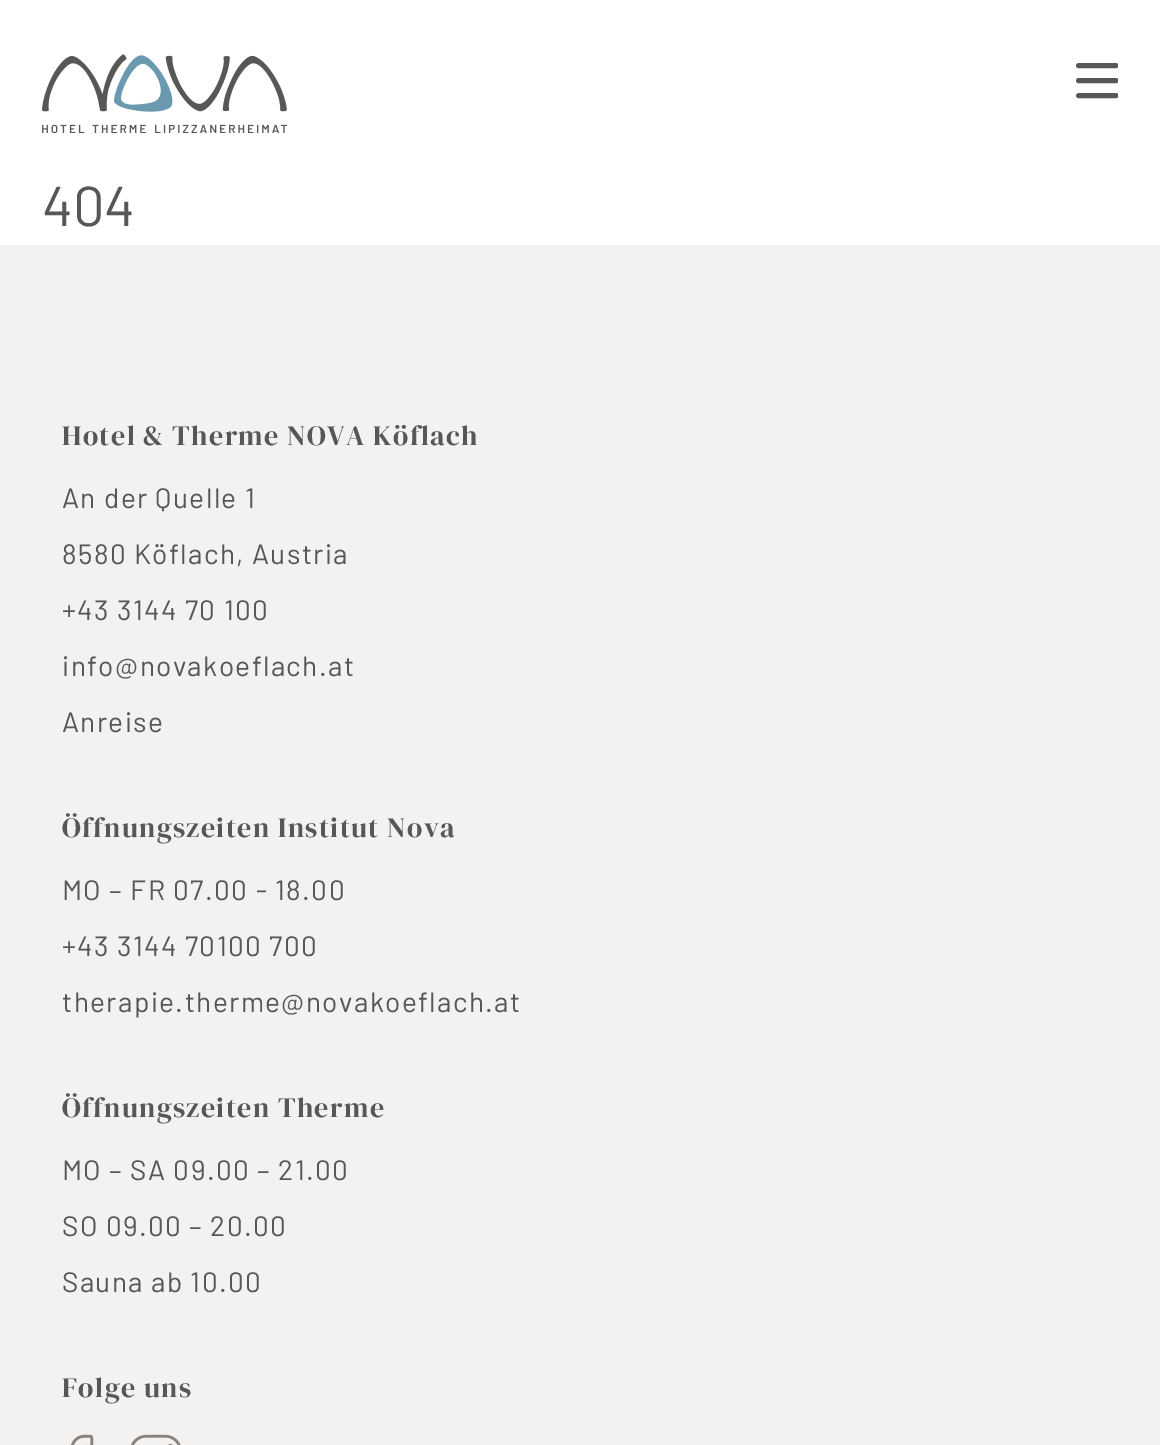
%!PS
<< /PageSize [1160 1445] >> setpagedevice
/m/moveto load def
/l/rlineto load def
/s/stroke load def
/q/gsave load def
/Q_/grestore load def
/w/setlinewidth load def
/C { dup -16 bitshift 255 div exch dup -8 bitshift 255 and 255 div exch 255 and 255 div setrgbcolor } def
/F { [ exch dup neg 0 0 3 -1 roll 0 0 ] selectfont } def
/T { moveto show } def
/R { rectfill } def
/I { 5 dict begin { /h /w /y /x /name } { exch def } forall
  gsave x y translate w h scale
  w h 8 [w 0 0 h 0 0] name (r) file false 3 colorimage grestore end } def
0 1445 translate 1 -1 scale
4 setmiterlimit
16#FFFFFF C
0 0 1160 1445 R
(1.rgb) 42 54 245 79 I
q
1076 60 42 42 rectclip
16#575756 C
4.9 w
1 setlinecap
1 setlinejoin
1078.5 65.5 m 37.5 0 l 1078.5 80.5 m 37.5 0 l 1078.5 95.5 m 37.5 0 l s
Q_
/Barlow-Regular 56 F
16#575756 C
(404) 42 226 T
16#F3F2F1 C
0 245 1160 1200 R
/DMSerifDisplay-Regular 28 F
16#575756 C
62 445 m 1.4 0 (Hotel & Therme NOVA Köflach) ashow
/Barlow-Regular 28 F
62 508 m 1.4 0 (An der Quelle 1) ashow
62 564 m 1.4 0 (8580 Köflach, Austria) ashow
62 620 m 1.4 0 (+43 3144 70 100) ashow
62 676 m 1.4 0 (info@novakoeflach.at) ashow
62 732 m 1.4 0 (Anreise) ashow
/DMSerifDisplay-Regular 28 F
62 837 m 1.4 0 (Öffnungszeiten Institut Nova) ashow
/Barlow-Regular 28 F
62 900 m 1.4 0 (MO – FR 07.00 - 18.00) ashow
62 956 m 1.4 0 (+43 3144 70100 700) ashow
62 1012 m 1.4 0 (therapie.therme@novakoeflach.at) ashow
/DMSerifDisplay-Regular 28 F
62 1117 m 1.4 0 (Öffnungszeiten Therme) ashow
/Barlow-Regular 28 F
62 1180 m 1.4 0 (MO – SA 09.00 – 21.00) ashow
62 1236 m 1.4 0 (SO 09.00 – 20.00) ashow
62 1292 m 1.4 0 (Sauna ab 10.00) ashow
/DMSerifDisplay-Regular 28 F
62 1397 m 1.4 0 (Folge uns) ashow
(2.rgb) 71 1434 23 11 I
(3.rgb) 131 1434 50 11 I
showpage
